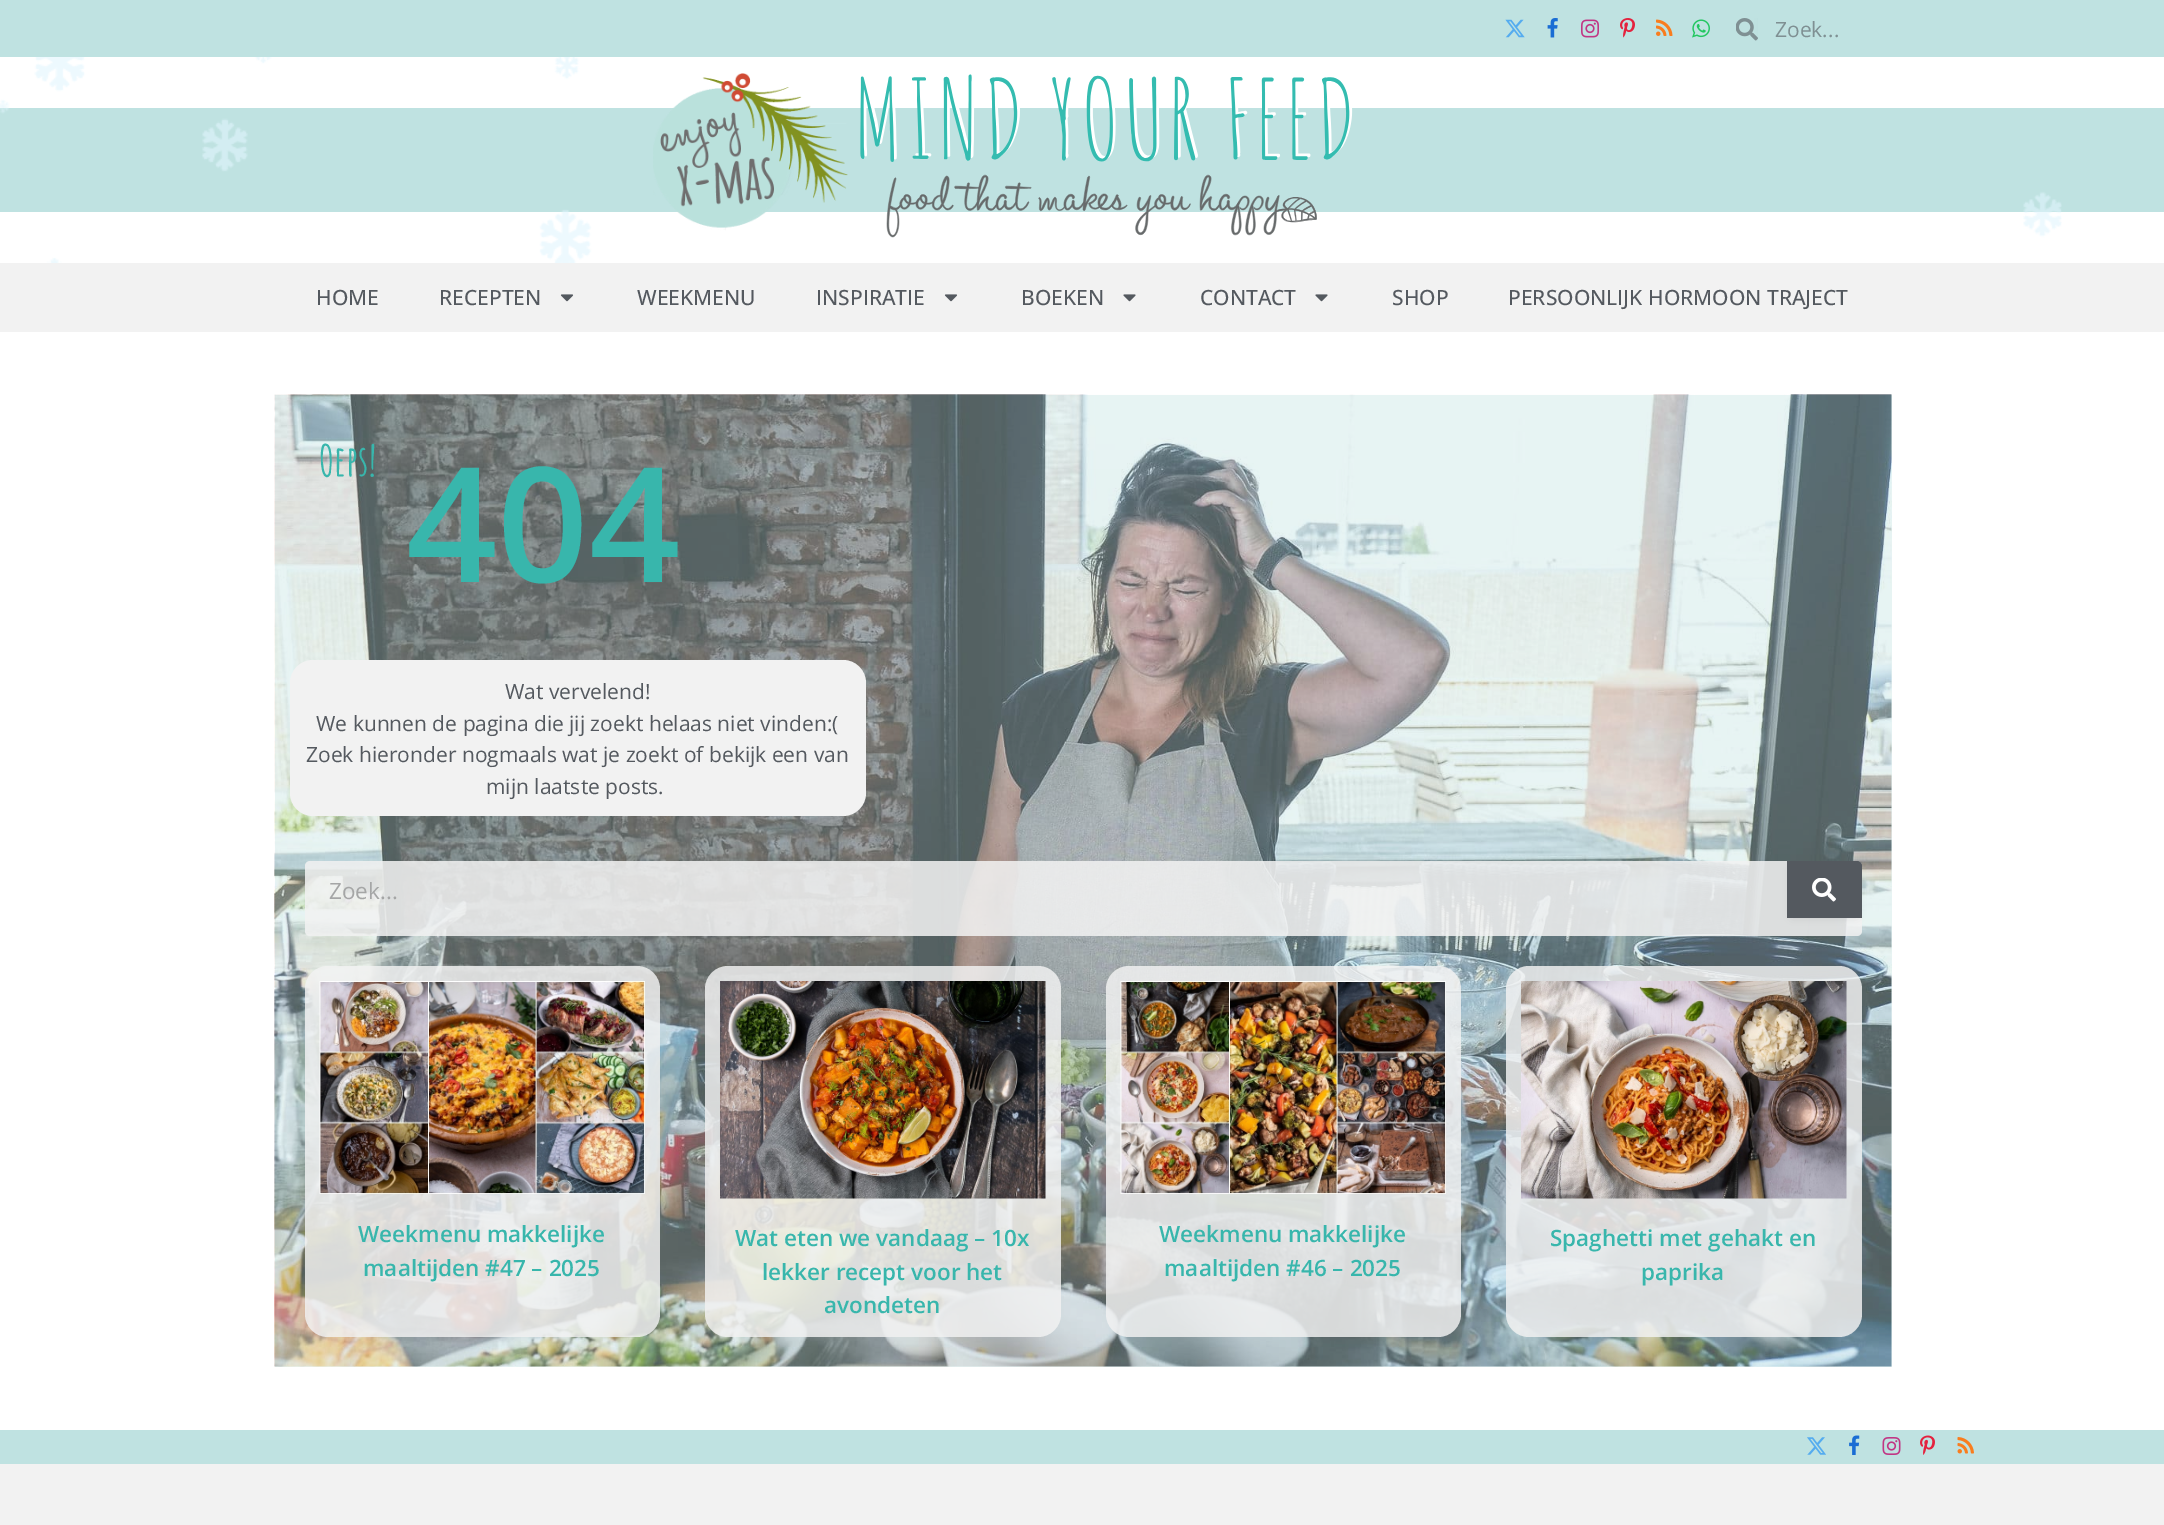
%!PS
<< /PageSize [2164 1525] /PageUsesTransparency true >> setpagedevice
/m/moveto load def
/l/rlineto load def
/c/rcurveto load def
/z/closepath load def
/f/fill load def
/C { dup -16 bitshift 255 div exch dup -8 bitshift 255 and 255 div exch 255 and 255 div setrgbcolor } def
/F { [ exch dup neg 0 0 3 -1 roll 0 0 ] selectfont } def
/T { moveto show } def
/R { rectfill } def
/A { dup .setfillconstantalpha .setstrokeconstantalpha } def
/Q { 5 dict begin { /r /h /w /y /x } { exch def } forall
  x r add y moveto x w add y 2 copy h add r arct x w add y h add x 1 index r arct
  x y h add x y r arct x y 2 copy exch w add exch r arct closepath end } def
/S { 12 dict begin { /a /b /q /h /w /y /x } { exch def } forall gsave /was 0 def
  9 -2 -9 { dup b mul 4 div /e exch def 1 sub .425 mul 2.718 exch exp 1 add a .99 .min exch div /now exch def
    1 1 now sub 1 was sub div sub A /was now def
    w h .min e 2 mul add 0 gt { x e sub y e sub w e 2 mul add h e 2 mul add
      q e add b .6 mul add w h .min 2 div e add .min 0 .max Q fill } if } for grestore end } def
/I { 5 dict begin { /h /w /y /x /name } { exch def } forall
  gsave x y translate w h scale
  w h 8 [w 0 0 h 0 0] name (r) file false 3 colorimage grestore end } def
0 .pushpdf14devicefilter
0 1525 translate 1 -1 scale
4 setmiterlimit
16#FFFFFF C
0 0 2164 1525 R
16#E8F5F4 C
275 395 1617 972 R
16#BFE2E1 C
0 0 2164 57 R
(1.rgb) 1505 19 20 19 I
(2.rgb) 1547 18 11 20 I
(3.rgb) 1581 19 18 19 I
(4.rgb) 1620 18 15 20 I
(5.rgb) 1656 19 17 17 I
(6.rgb) 1692 19 18 19 I
(7.rgb) 1736 18 22 23 I
/OpenSans-Regular 21 F
16#7F9093 C
(Zoek...) 1775 37 T
16#BFE2E1 C
0 108 2164 104 R
(8.rgb) 0 57 2062 206 I
(9.rgb) 653 73 803 165 I
16#F2F2F2 C
0 263 2164 69 R
/OpenSans-Medium 21 F
16#54595F C
(HOME) 316 305 T
(RECEPTEN) 439 305 T
(10.rgb) 560 294 14 8 I
(WEEKMENU) 637 305 T
(INSPIRATIE) 816 305 T
(10.rgb) 944 294 14 8 I
(BOEKEN) 1021 305 T
(11.rgb) 1123 294 13 8 I
(CONTACT) 1200 305 T
(11.rgb) 1315 294 13 8 I
(SHOP) 1392 305 T
(PERSOONLIJK HORMOON TRAJECT) 1508 305 T
(12.rgb) 274 394 1618 973 I
/AmaticSC-Bold 42 F
16#38B6AC C
(Oeps!) 319 476 T
/OpenSans-SemiBold 160 F
(404) 406 582 T
16#F2F2F2 C
290 660 576 156 23 Q f
/OpenSans-Regular 21 F
16#54595F C
(Wat vervelend!) 505 699 T
(We kunnen de pagina die jij zoekt helaas niet vinden:\() 316 731 T
(Zoek hieronder nogmaals wat je zoekt of bekijk een van) 306 762 T
(mijn laatste posts.) 486 794 T
0.86 A
16#F2F2F2 C
305 861 1557 75 5 Q f
/OpenSans-Regular 22.5 F
1 A
16#A5A6A6 C
(Zoek...) 329 899 T
16#000000 C
1793 870 63 45 0 5 .16 S
16#54595F C
1787 861 m 70 0 l 3 0 5 2 5 5 c 0 52 l -75 0 l z f
(13.rgb) 1812 878 24 24 I
0.83 A
16#F2F2F2 C
305 966 355 371 23 Q f
1 A
(14.rgb) 319 981 326 213 I
/OpenSans-SemiBold 22.5 F
16#38B6AC C
(Weekmenu makkelijke) 358 1242 T
(maaltijden #47 – 2025) 363 1276 T
0.83 A
16#F2F2F2 C
705 966 356 371 23 Q f
1 A
(15.rgb) 720 981 326 218 I
16#38B6AC C
(Wat eten we vandaag – 10x) 735 1246 T
(lekker recept voor het) 762 1280 T
(avondeten) 824 1313 T
0.83 A
16#F2F2F2 C
1106 966 355 371 23 Q f
1 A
(16.rgb) 1120 981 326 213 I
16#38B6AC C
(Weekmenu makkelijke) 1159 1242 T
(maaltijden #46 – 2025) 1164 1276 T
0.83 A
16#F2F2F2 C
1506 966 356 371 23 Q f
1 A
(17.rgb) 1521 981 326 218 I
16#38B6AC C
(Spaghetti met gehakt en) 1550 1246 T
(paprika) 1641 1280 T
16#BFE2E1 C
0 1430 2164 34 R
(18.rgb) 1807 1437 19 18 I
(19.rgb) 1849 1435 11 20 I
(20.rgb) 1882 1437 19 18 I
(21.rgb) 1920 1435 15 20 I
(22.rgb) 1957 1437 17 17 I
16#F2F2F2 C
0 1464 2164 61 R
.poppdf14devicefilter showpage
